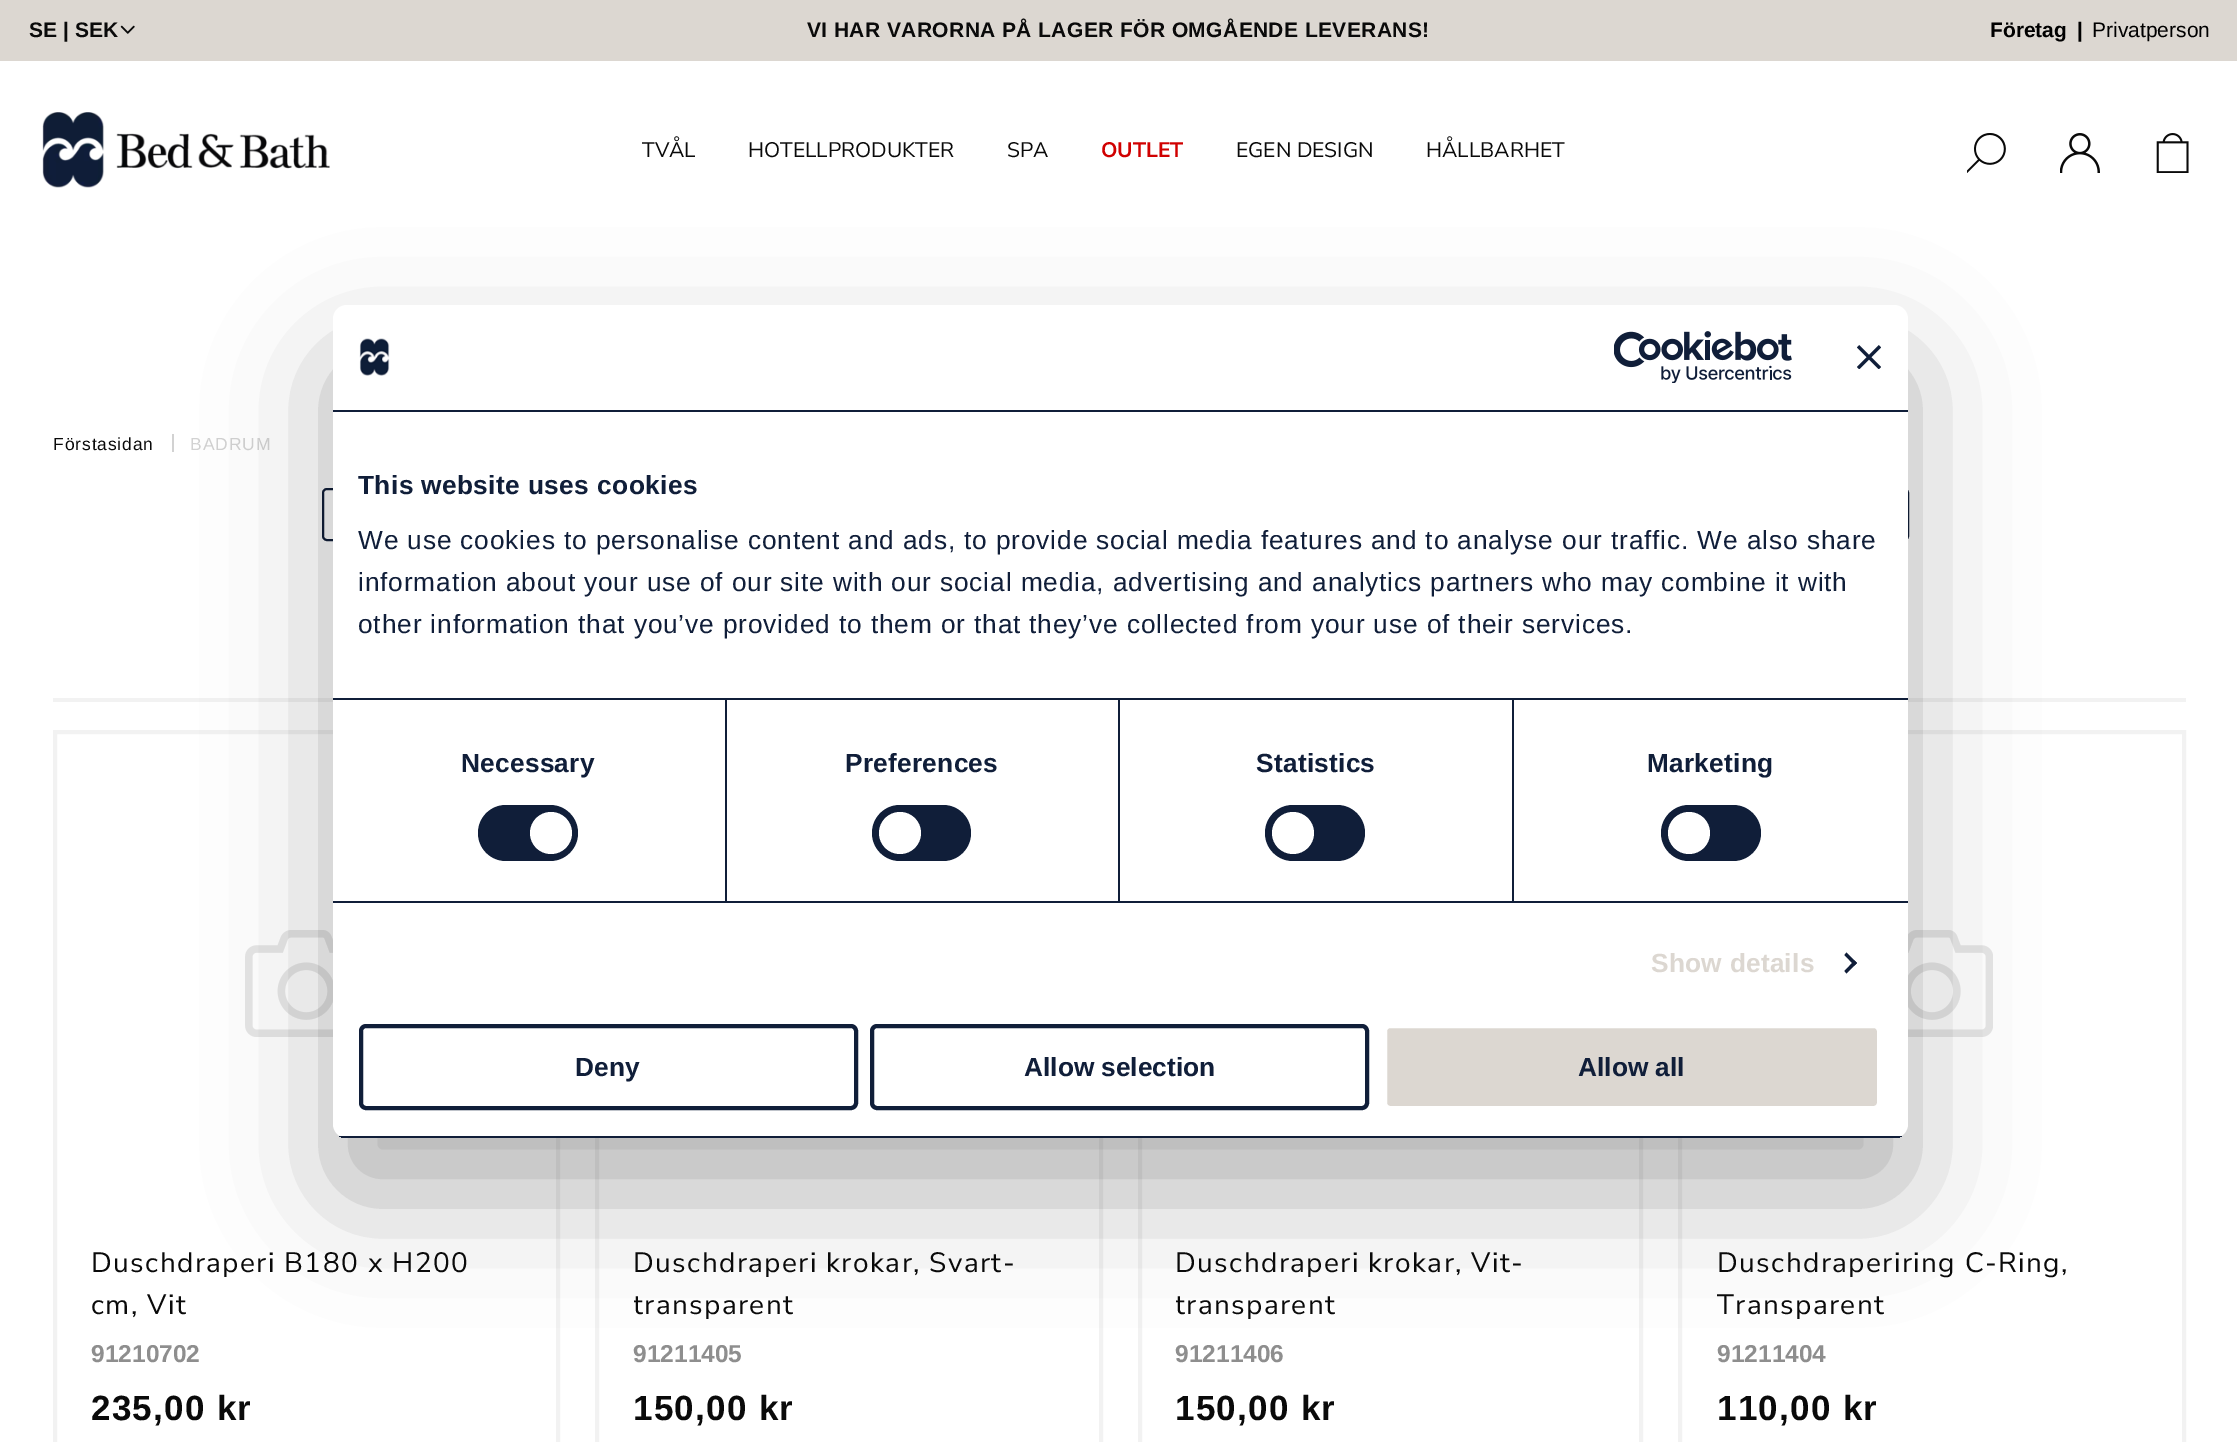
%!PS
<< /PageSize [2237 1442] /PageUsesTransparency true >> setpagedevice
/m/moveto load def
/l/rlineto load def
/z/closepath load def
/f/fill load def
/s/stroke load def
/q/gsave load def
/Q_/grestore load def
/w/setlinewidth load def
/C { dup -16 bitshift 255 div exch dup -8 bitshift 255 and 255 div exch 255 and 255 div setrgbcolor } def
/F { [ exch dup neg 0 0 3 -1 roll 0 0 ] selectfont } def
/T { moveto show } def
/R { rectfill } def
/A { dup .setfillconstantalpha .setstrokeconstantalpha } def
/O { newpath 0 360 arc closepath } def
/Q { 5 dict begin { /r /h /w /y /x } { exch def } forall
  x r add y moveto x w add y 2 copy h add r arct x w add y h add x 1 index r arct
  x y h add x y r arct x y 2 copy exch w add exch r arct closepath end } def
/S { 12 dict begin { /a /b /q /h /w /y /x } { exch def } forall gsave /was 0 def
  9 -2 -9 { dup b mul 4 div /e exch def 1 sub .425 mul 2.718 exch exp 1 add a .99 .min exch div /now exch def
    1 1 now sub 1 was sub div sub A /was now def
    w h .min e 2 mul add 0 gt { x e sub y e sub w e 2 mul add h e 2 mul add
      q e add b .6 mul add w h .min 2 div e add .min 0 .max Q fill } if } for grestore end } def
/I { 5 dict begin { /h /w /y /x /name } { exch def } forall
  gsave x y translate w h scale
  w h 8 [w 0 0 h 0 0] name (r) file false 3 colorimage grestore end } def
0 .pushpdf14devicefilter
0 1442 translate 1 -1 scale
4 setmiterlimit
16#FFFFFF C
0 0 2237 1442 R
16#DCD7D1 C
0 0 2237 61 R
/Arimo-Bold 21 F
16#0A0A0A C
(SE | SEK) 29 37 T
(1.rgb) 120 25 15 9 I
807 37 m .4 0 (VI HAR VARORNA PÅ LAGER FÖR OMGÅENDE LEVERANS!) ashow
16#000000 C
(Företag) 1990 37 T
(|) 2077 37 T
/Arimo-Regular 21 F
(Privatperson) 2092 37 T
(2.rgb) 42 112 288 76 I
/NunitoSans-Regular 21 F
16#0A0A0A C
(TVÅL) 642 157 T
(HOTELLPRODUKTER) 748 157 T
(SPA) 1007 157 T
/NunitoSans-Bold 21 F
16#D00000 C
(OUTLET) 1101 157 T
/NunitoSans-Regular 21 F
16#0A0A0A C
(EGEN DESIGN) 1236 157 T
(HÅLLBARHET) 1426 157 T
(3.rgb) 1967 133 39 40 I
(4.rgb) 2060 133 40 40 I
(5.rgb) 2156 133 33 40 I
/Arimo-Regular 17.5 F
53 450 m .88 0 (Förstasidan) ashow
16#D2D2D2 C
172 434 2 18 R
190 450 m .88 0 (BADRUM) ashow
16#101E39 C
2 w
323 489 252 51 4 Q s
1713 489 195 51 4 Q s
16#F2F2F2 C
53 698 2133 4 R
4 w
55 732 503 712 rectstroke
(6.rgb) 245 930 88 107 I
/NunitoSans-Regular 28 F
16#0A0A0A C
91 1272 m 1.4 0 (Duschdraperi B180 x H200) ashow
91 1314 m 1.4 0 (cm, Vit) ashow
/Arimo-Bold 24.5 F
16#8E8E8E C
(91210702) 91 1362 T
/Arimo-Bold 35 F
16#0A0A0A C
91 1420 m 1.25 0 (235,00 kr) ashow
16#F2F2F2 C
597 732 504 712 rectstroke
/NunitoSans-Regular 28 F
16#0A0A0A C
633 1272 m 1.4 0 (Duschdraperi krokar, Svart-) ashow
q
634 1243 430 80 rectclip
633 1314 m 1.4 0 (transparent) ashow
Q_
/Arimo-Bold 24.5 F
16#8E8E8E C
(91211405) 633 1362 T
/Arimo-Bold 35 F
16#0A0A0A C
633 1420 m 1.25 0 (150,00 kr) ashow
16#F2F2F2 C
1140 732 501 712 rectstroke
/NunitoSans-Regular 28 F
16#0A0A0A C
1175 1272 m 1.4 0 (Duschdraperi krokar, Vit-) ashow
q
1176 1243 429 80 rectclip
1175 1314 m 1.4 0 (transparent) ashow
Q_
/Arimo-Bold 24.5 F
16#8E8E8E C
(91211406) 1175 1362 T
/Arimo-Bold 35 F
16#0A0A0A C
1175 1420 m 1.25 0 (150,00 kr) ashow
16#F2F2F2 C
1680 732 504 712 rectstroke
(7.rgb) 1908 930 85 107 I
/NunitoSans-Regular 28 F
16#0A0A0A C
1717 1272 m 1.4 0 (Duschdraperiring C-Ring,) ashow
1717 1314 m 1.4 0 (Transparent) ashow
/Arimo-Bold 24.5 F
16#8E8E8E C
(91211404) 1717 1362 T
/Arimo-Bold 35 F
16#0A0A0A C
1717 1420 m 1.25 0 (110,00 kr) ashow
16#000000 C
333 361 1575 833 14 59.5 .3 S
16#FFFFFF C
333 305 1575 833 14 Q f
16#101E39 C
333 410 1575 2 R
(8.rgb) 359 338 31 38 I
(9.rgb) 1614 331 178 52 I
(10.rgb) 1857 345 24 24 I
333 698 1575 2 R
/LiberationSans-Bold 26.25 F
358 494 m .4 0 (This website uses cookies) ashow
/LiberationSans-Regular 26.25 F
358 549 m .88 0 (We use cookies to personalise content and ads, to provide social media features and to analyse our traffic. We also share) ashow
358 591 m .88 0 (information about your use of our site with our social media, advertising and analytics partners who may combine it with) ashow
358 633 m .88 0 (other information that you’ve provided to them or that they’ve collected from your use of their services.) ashow
333 901 1575 2 R
725 700 2 201 R
/LiberationSans-Bold 26.25 F
461 772 m .25 0 (Necessary) ashow
478 805 100 56 28 Q f
16#FFFFFF C
551 833 21 O f
16#101E39 C
1118 700 2 201 R
845 772 m .25 0 (Preferences) ashow
872 805 99 56 28 Q f
16#FFFFFF C
900 833 21 O f
16#101E39 C
1512 700 2 201 R
1256 772 m .25 0 (Statistics) ashow
1265 805 100 56 28 Q f
16#FFFFFF C
1293 833 21 O f
16#101E39 C
1647 772 m .25 0 (Marketing) ashow
1661 805 100 56 28 Q f
16#FFFFFF C
1689 833 21 O f
16#DCD7D1 C
1651 972 m .25 0 (Show details) ashow
16#101E39 C
1846.5 952.5 m 10.5 10.5 l -2.5 2.5 l -10 -10.5 l z f
1854.5 960.5 m 2.5 2.5 l -10.5 10.5 l -2 -2.5 l z f
q
333 305 1575 833 14 Q clip newpath
333 1136 1575 2 R
Q_
361 1026 495 82 5 Q s
(Deny) 575 1076 T
872 1026 495 82 5 Q s
(Allow selection) 1024 1076 T
16#DCD7D1 C
1385 1026 494 82 5 Q q f Q_
16#FFFFFF C
s
16#101E39 C
(Allow all) 1578 1076 T
.poppdf14devicefilter showpage
